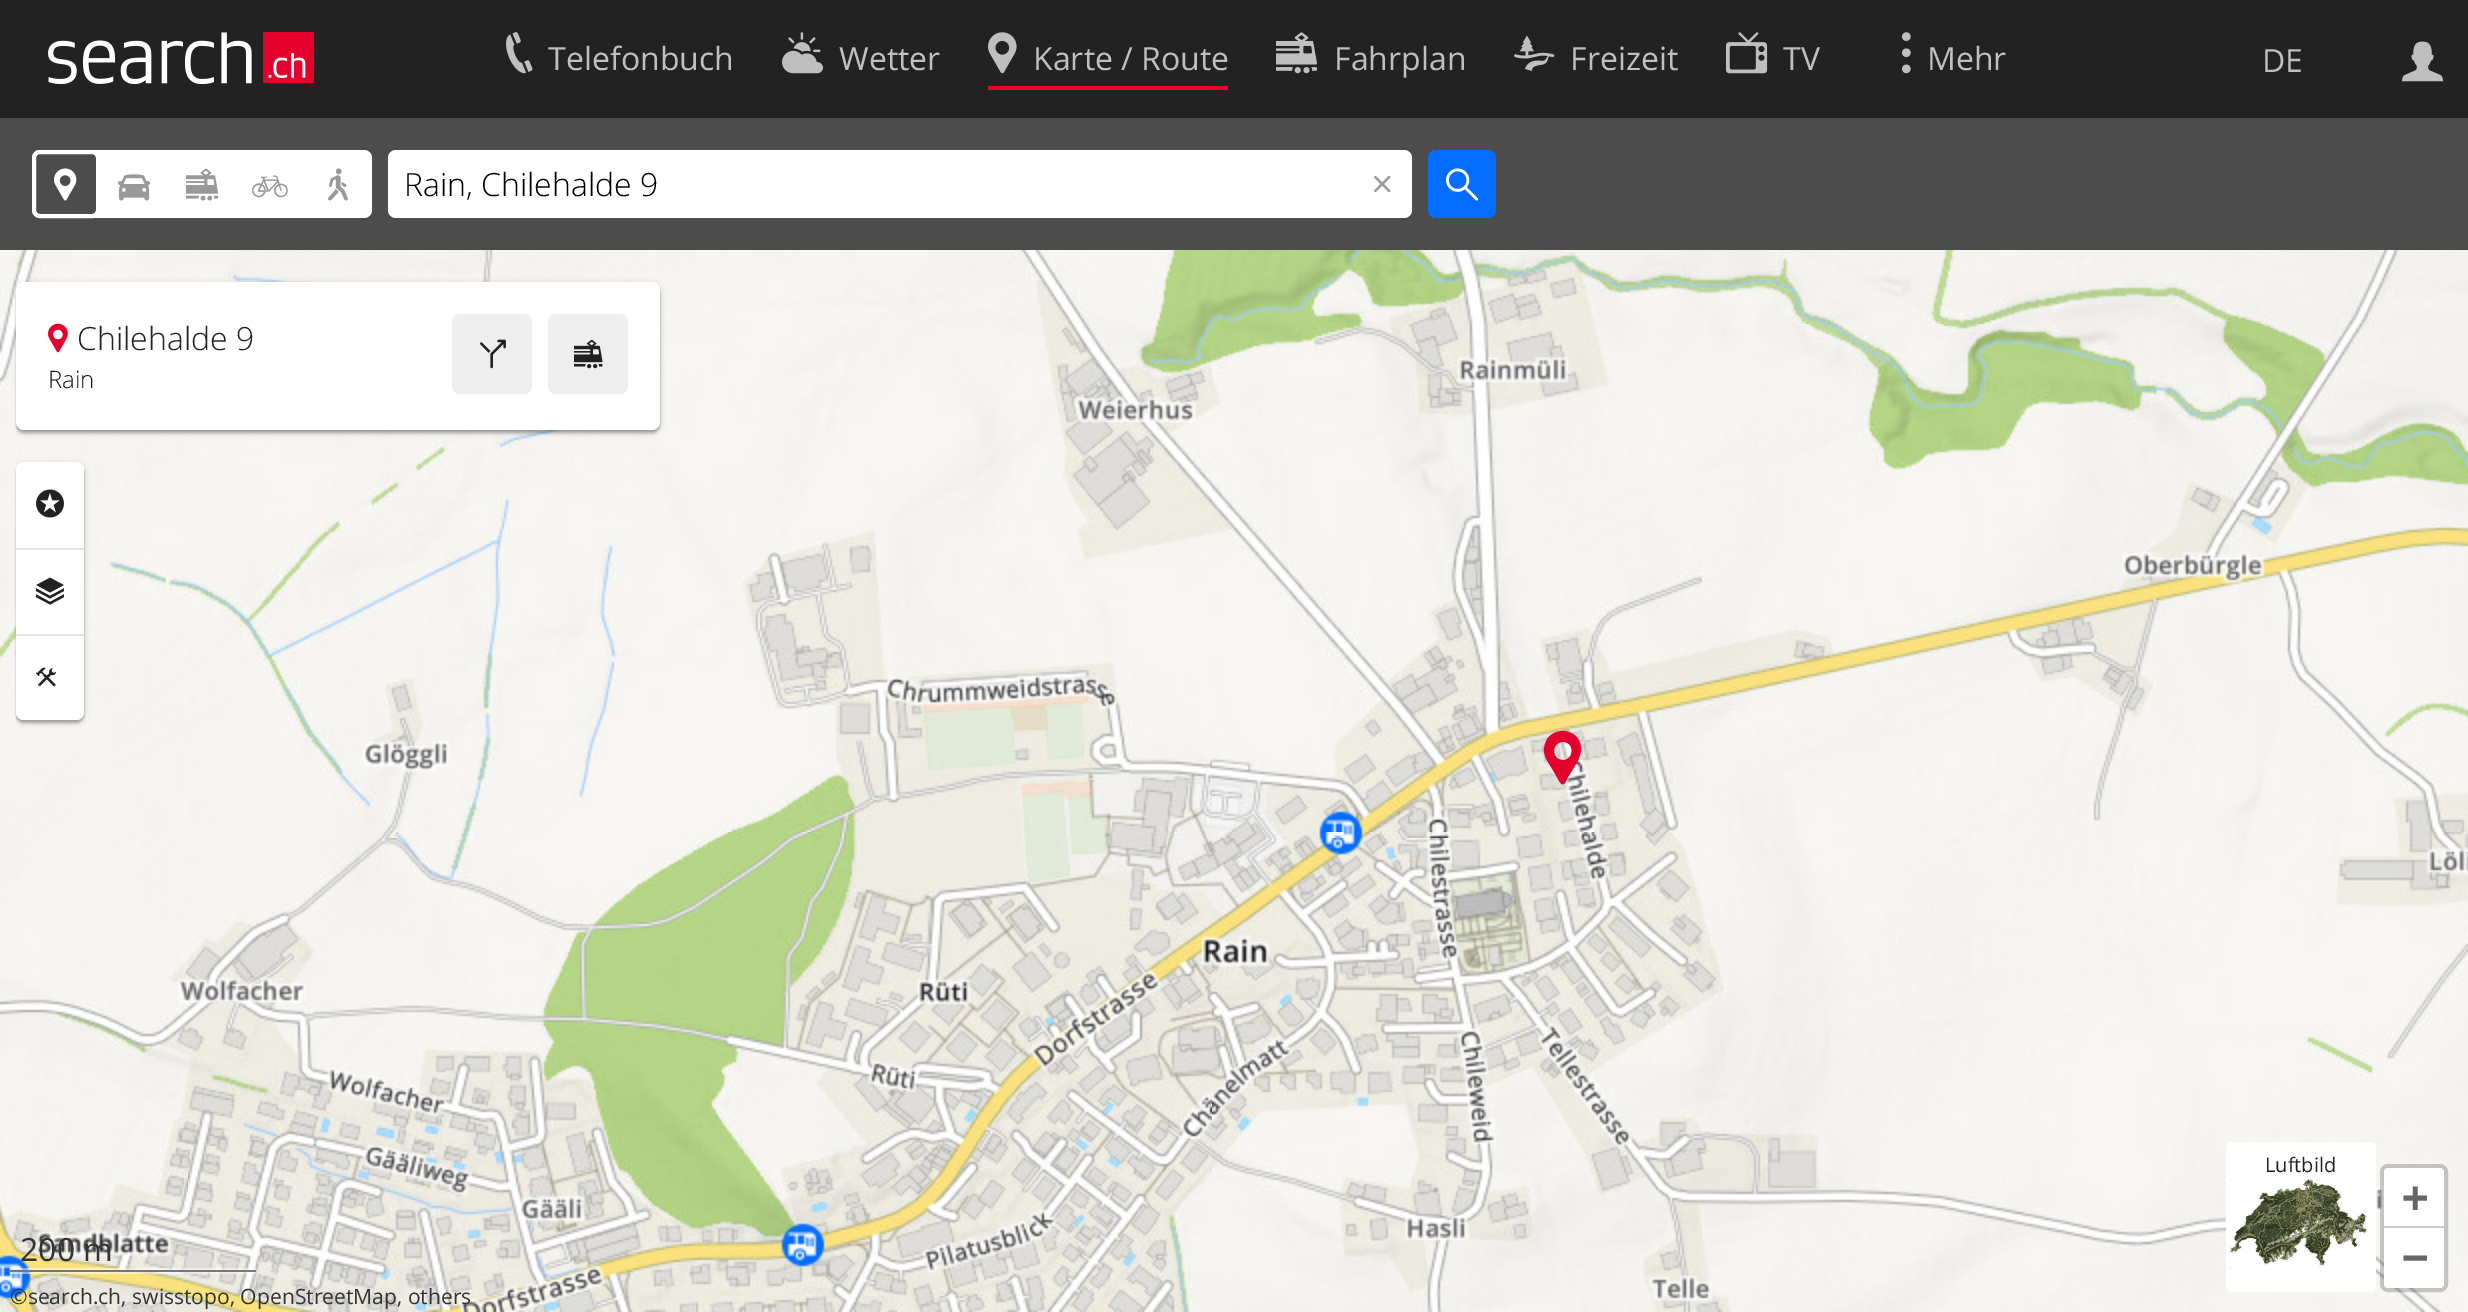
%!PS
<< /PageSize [2468 1312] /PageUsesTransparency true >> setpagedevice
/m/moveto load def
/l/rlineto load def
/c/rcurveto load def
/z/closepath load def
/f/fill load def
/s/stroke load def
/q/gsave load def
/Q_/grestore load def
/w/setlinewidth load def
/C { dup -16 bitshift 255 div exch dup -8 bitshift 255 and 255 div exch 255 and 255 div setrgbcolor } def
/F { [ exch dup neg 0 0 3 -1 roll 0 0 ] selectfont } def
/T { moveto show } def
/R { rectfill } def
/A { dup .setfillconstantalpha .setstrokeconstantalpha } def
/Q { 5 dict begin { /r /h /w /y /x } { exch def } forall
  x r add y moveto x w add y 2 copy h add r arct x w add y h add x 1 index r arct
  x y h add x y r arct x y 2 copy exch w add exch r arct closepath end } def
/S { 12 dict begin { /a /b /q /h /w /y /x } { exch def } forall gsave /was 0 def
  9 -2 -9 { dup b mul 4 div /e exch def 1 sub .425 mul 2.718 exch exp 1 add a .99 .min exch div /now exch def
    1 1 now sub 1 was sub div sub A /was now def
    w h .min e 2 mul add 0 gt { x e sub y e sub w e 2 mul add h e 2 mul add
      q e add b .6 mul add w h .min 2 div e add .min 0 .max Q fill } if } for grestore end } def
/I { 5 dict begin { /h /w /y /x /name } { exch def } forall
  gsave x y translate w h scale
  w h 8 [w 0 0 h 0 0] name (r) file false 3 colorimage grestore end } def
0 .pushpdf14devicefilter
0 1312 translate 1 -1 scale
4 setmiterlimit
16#FFFFFF C
0 0 2468 1312 R
16#222222 C
0 0 2468 118 R
(1.rgb) 48 32 266 52 I
(2.rgb) 506 32 27 42 I
/OpenSans-Regular 32 F
16#BFBFBF C
(Telefonbuch) 548 70 T
(3.rgb) 782 32 42 42 I
(Wetter) 839 70 T
16#E4002C C
988 86 240 4 R
(4.rgb) 988 32 29 42 I
16#BFBFBF C
(Karte / Route) 1033 70 T
(5.rgb) 1276 32 42 42 I
(Fahrplan) 1334 70 T
(6.rgb) 1514 35 41 36 I
(Freizeit) 1570 70 T
(7.rgb) 1726 32 42 42 I
(TV) 1783 70 T
(8.rgb) 1902 32 9 42 I
(Mehr) 1927 70 T
(DE) 2262 72 T
(9.rgb) 2402 41 42 41 I
16#4C4C4C C
0 118 2468 132 R
16#FFFFFF C
32 150 340 68 8 Q f
16#4C4C4C C
34 152 64 64 6 Q q f Q_
16#FFFFFF C
4 w
s
(10.rgb) 54 168 23 33 I
(11.rgb) 118 174 33 27 I
(12.rgb) 186 168 33 33 I
(13.rgb) 252 175 36 23 I
(14.rgb) 328 168 20 33 I
388 150 1024 68 8 Q f
/OpenSans-Light 32 F
16#000000 C
(Rain, Chilehalde 9) 404 196 T
(15.rgb) 1374 175 17 18 I
16#056DFF C
1428 150 68 68 8 Q f
(16.rgb) 1446 168 33 33 I
(24.rgb) 0 250 702 588 I
q
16 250 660 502 rectclip
16#000000 C
16 284 644 148 8 3 .2 S
Q_
16#000000 C
16 286 644 148 8 1 .12 S
16 284 644 148 8 1 .14 S
16#FFFFFF C
16 282 644 148 8 Q f
(17.rgb) 48 323 20 30 I
16#222222 C
(Chilehalde 9) 77 350 T
16#EEEEEE C
452 314 80 80 8 Q f
(18.rgb) 480 339 26 30 I
548 314 80 80 8 Q f
(19.rgb) 574 339 29 30 I
/OpenSans-Light 24 F
16#111111 C
(Rain) 48 388 T
q
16 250 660 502 rectclip
16#000000 C
16 464 68 258 8 3 .2 S
Q_
16#000000 C
16 466 68 258 8 1 .12 S
16 464 68 258 8 1 .14 S
16#FFFFFF C
16 462 68 258 8 Q f
24 462 m 52 0 l 4.5 0 8 3.5 8 8 c 0 80 l -68 0 l 0 -80 l 0 -4.5 3.5 -8 8 -8 c z f
16#E6E6E6 C
16 548 68 2 R
(20.rgb) 36 489 28 29 I
16 634 68 2 R
(21.rgb) 36 577 28 28 I
16#FFFFFF C
16 636 m 68 0 l 0 76 l 0 4.5 -3.5 8 -8 8 c -52 0 l -4.5 0 -8 -3.5 -8 -8 c z f
(22.rgb) 36 667 20 20 I
(29.rgb) 1726 838 742 474 I
2226 1142 150 150 6 Q f
(23.rgb) 2230 1179 141 90 I
/OpenSans-Regular 20 F
16#222222 C
(Luftbild) 2265 1172 T
(25.rgb) 702 250 1024 588 I
(26.rgb) 1726 250 742 588 I
(27.rgb) 0 838 702 474 I
(28.rgb) 702 838 1024 474 I
(30.rgb) 884 355 718 483 I
(31.rgb) 2122 551 143 34 I
(32.rgb) 362 739 89 34 I
(33.rgb) 0 977 606 335 I
(34.rgb) 781 838 932 464 I
(35.rgb) 2376 847 92 366 I
16#E4002C C
1581 749 m 0 -23 -35 -25 -37 0 c -1 8 7 17 10 23 c 4 7 l 1 2 4 8 7 4 c 4 -8 l 4 -6 12 -17 12 -26 c z 1563 760 m -12 0 -12 -18 0 -18 c 12 0 11 18 0 18 c z f
0.2 A
16#000000 C
2382 1166 64 124 6 Q s
1 A
16#FFFFFF C
2388 1168 m 52 0 l 2 0 4 2 4 4 c 0 56 l -60 0 l 0 -56 l 0 -2 2 -4 4 -4 c z f
16#CCCCCC C
2384 1226 60 2 R
/DejaVuSansMono-Bold 44 F
16#666666 C
(+) 2402 1212 T
16#FFFFFF C
2384 1228 m 60 0 l 0 56 l 0 2 -2 4 -4 4 c -52 0 l -2 0 -4 -2 -4 -4 c z f
16#666666 C
(−) 2402 1272 T
0.5 A
16#FFFFFF C
10 1272 246 2 R
10 1268 246 2 R
1 A
16#777777 C
10 1270 246 2 R
/OpenSans-Regular 32 F
16#333333 C
(200 m) 20 1261 T
/OpenSans-Regular 21.1 F
(©search.ch, swisstopo, OpenStreetMap, others) 10 1304 T
.poppdf14devicefilter showpage
